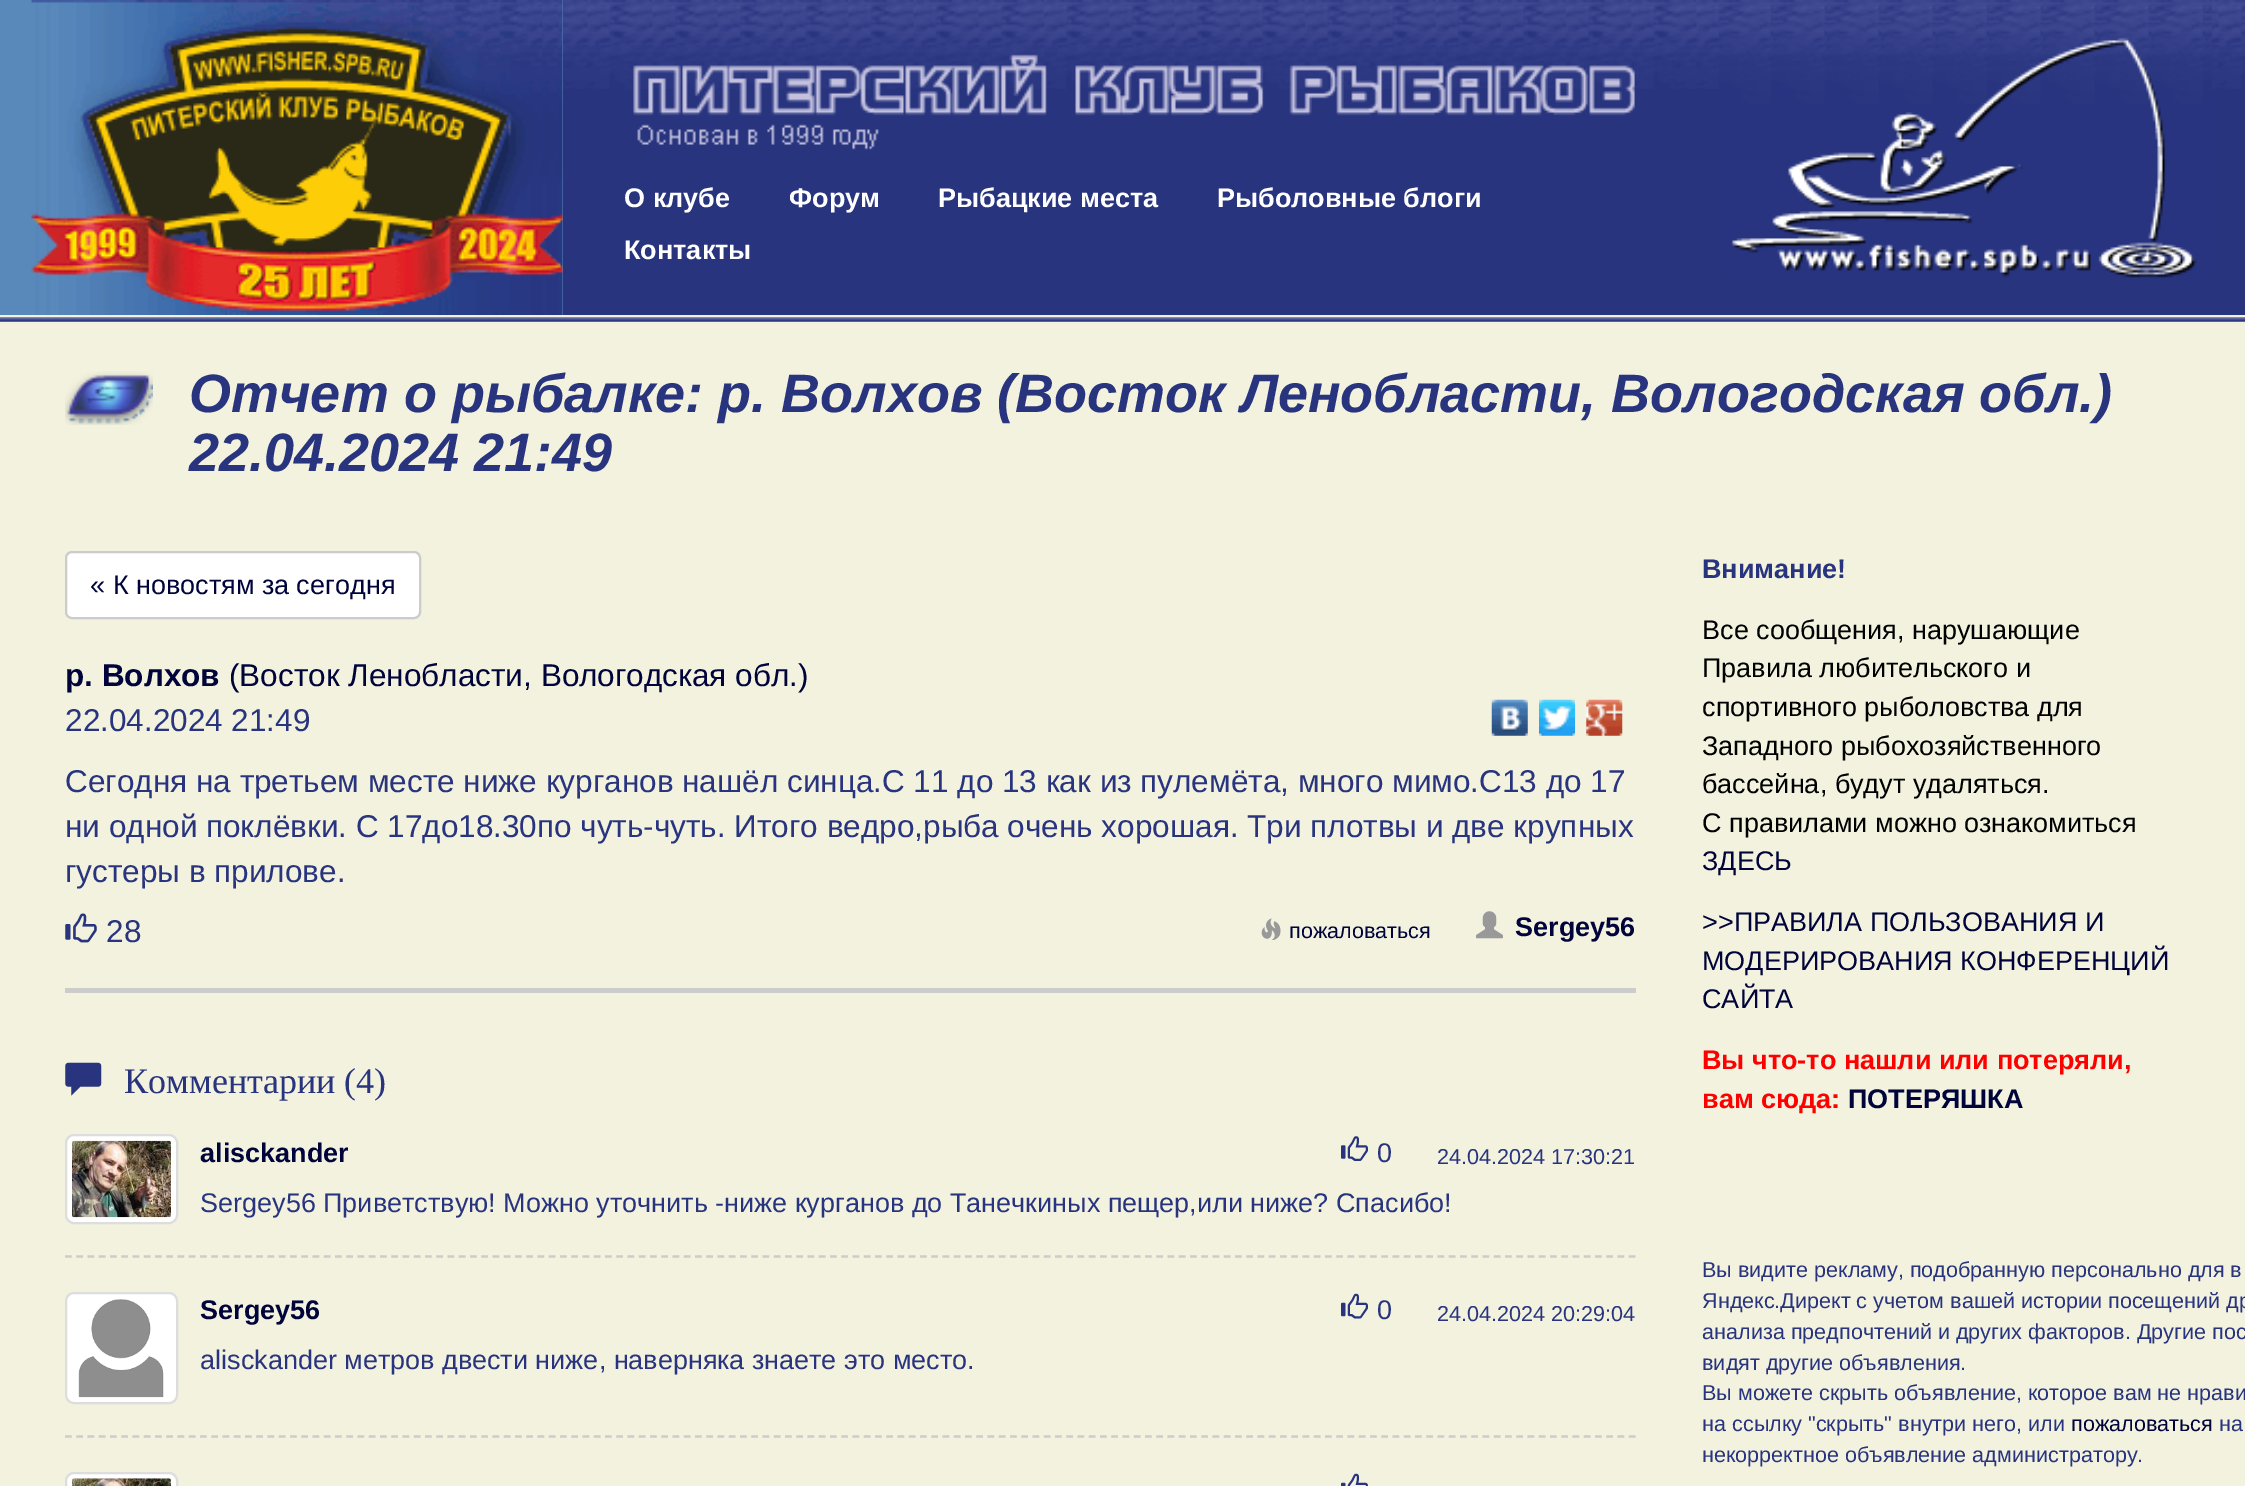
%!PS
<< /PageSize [2245 1486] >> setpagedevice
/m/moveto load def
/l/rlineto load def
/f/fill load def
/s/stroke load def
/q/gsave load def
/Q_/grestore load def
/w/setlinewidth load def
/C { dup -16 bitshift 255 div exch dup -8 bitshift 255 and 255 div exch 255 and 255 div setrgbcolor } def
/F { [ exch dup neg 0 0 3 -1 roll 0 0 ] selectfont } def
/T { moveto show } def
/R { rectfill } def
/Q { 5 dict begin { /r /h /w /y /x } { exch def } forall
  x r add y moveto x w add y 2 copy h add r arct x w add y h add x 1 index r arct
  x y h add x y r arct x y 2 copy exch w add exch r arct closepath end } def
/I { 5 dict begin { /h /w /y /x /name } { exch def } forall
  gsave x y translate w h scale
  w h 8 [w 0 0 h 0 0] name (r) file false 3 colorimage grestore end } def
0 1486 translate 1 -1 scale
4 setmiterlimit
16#F2F2DF C
0 0 2245 1486 R
(1.rgb) 0 317 2245 5 I
16#28347E C
563 6 1682 309 R
(2.rgb) 563 0 1682 89 I
16#5989BB C
0 0 563 315 R
(3.rgb) 31 0 532 315 I
(4.rgb) 633 54 1002 96 I
/LiberationSans-Bold 27 F
16#FFFFFF C
(О клубе) 624 207 T
(Форум) 789 207 T
(Рыбацкие места) 938 207 T
(Рыболовные блоги) 1217 207 T
(Контакты) 624 259 T
(5.rgb) 1719 0 493 278 I
(6.rgb) 65 371 88 54 I
/LiberationSans-BoldItalic 54 F
16#28347E C
(Отчет о рыбалке: р. Волхов \(Восток Ленобласти, Вологодская обл.\)) 189 412 T
(22.04.2024 21:49) 189 471 T
16#FFFFFF C
66 552 354 66 6 Q q f Q_
16#CCCCCC C
2 w
s
/LiberationSans-Regular 27 F
16#00043A C
(« К новостям за сегодня) 90 594 T
16#CCCCCC C
65 988 1571 5 R
/LiberationSans-Bold 31.5 F
16#00043A C
(р. Волхов) 65 686 T
/LiberationSans-Regular 31.5 F
(\(Восток Ленобласти, Вологодская обл.\)) 229 686 T
16#28347E C
(22.04.2024 21:49) 65 731 T
(7.rgb) 1491 699 37 37 I
(8.rgb) 1539 699 36 37 I
(9.rgb) 1586 699 37 37 I
(Сегодня на третьем месте ниже курганов нашёл синца.С 11 до 13 как из пулемёта, много мимо.С13 до 17) 65 792 T
(ни одной поклёвки. С 17до18.30по чуть-чуть. Итого ведро,рыба очень хорошая. Три плотвы и две крупных) 65 837 T
(густеры в прилове.) 65 882 T
(10.rgb) 65 913 32 30 I
(28) 106 942 T
(11.rgb) 1261 918 20 22 I
/LiberationSans-Regular 21.6 F
16#00043A C
(пожаловаться) 1289 938 T
(12.rgb) 1476 911 27 28 I
/LiberationSans-Bold 27 F
(Sergey56) 1515 936 T
(13.rgb) 65 1062 37 34 I
/LiberationSerif-Regular 36 F
16#28347E C
(Комментарии \(4\)) 124 1093 T
16#CCCCCC C
2.2 w
[6.75 4.5] 0 setdash
65 1256.5 m 1571 0 l s
16#FFFFFF C
66 1135 111 88 8 Q q f Q_
16#DDDDDD C
2 w
[] 0 setdash
s
(14.rgb) 72 1140 99 78 I
/LiberationSans-Bold 27 F
16#00043A C
(alisckander) 200 1162 T
(15.rgb) 1341 1136 27 25 I
/LiberationSans-Regular 27 F
16#28347E C
(0) 1377 1162 T
/LiberationSans-Regular 21.6 F
(24.04.2024 17:30:21) 1437 1164 T
/LiberationSans-Regular 27 F
(Sergey56 Приветствую! Можно уточнить -ниже курганов до Танечкиных пещер,или ниже? Спасибо!) 200 1212 T
16#CCCCCC C
2.2 w
[6.75 4.5] 0 setdash
65 1436.5 m 1571 0 l s
16#FFFFFF C
66 1293 111 110 8 Q q f Q_
16#DDDDDD C
2 w
[] 0 setdash
s
(16.rgb) 78 1299 86 99 I
/LiberationSans-Bold 27 F
16#00043A C
(Sergey56) 200 1319 T
(17.rgb) 1341 1293 27 26 I
/LiberationSans-Regular 27 F
16#28347E C
(0) 1377 1319 T
/LiberationSans-Regular 21.6 F
(24.04.2024 20:29:04) 1437 1321 T
/LiberationSans-Regular 27 F
(alisckander метров двести ниже, наверняка знаете это место.) 200 1369 T
16#FFFFFF C
66 1473 111 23 8 Q q f Q_
16#DDDDDD C
s
(18.rgb) 72 1478 99 8 I
(19.rgb) 1341 1473 27 13 I
/LiberationSans-Bold 27 F
16#28347E C
(Внимание!) 1702 578 T
/LiberationSans-Regular 27 F
16#000000 C
(Все сообщения, нарушающие) 1702 639 T
(Правила любительского и) 1702 677 T
(спортивного рыболовства для) 1702 716 T
(Западного рыбохозяйственного) 1702 755 T
(бассейна, будут удаляться.) 1702 793 T
(С правилами можно ознакомиться) 1702 832 T
16#00043A C
(ЗДЕСЬ) 1702 870 T
(>>ПРАВИЛА ПОЛЬЗОВАНИЯ И) 1702 931 T
(МОДЕРИРОВАНИЯ КОНФЕРЕНЦИЙ) 1702 970 T
(САЙТА) 1702 1008 T
/LiberationSans-Bold 27 F
16#FF0000 C
(Вы что-то нашли или потеряли,) 1702 1069 T
(вам сюда:) 1702 1108 T
16#00043A C
(ПОТЕРЯШКА) 1848 1108 T
/LiberationSans-Regular 21.6 F
16#28347E C
(Вы видите рекламу, подобранную персонально для в) 1702 1277 T
(Яндекс.Директ с учетом вашей истории посещений др) 1702 1308 T
(анализа предпочтений и других факторов. Другие пос) 1702 1339 T
(видят другие объявления.) 1702 1370 T
(Вы можете скрыть объявление, которое вам не нрави) 1702 1400 T
(на ссылку "скрыть" внутри него, или) 1702 1431 T
16#00043A C
(пожаловаться) 2071 1431 T
16#28347E C
(на) 2219 1431 T
(некорректное объявление администратору.) 1702 1462 T
showpage
